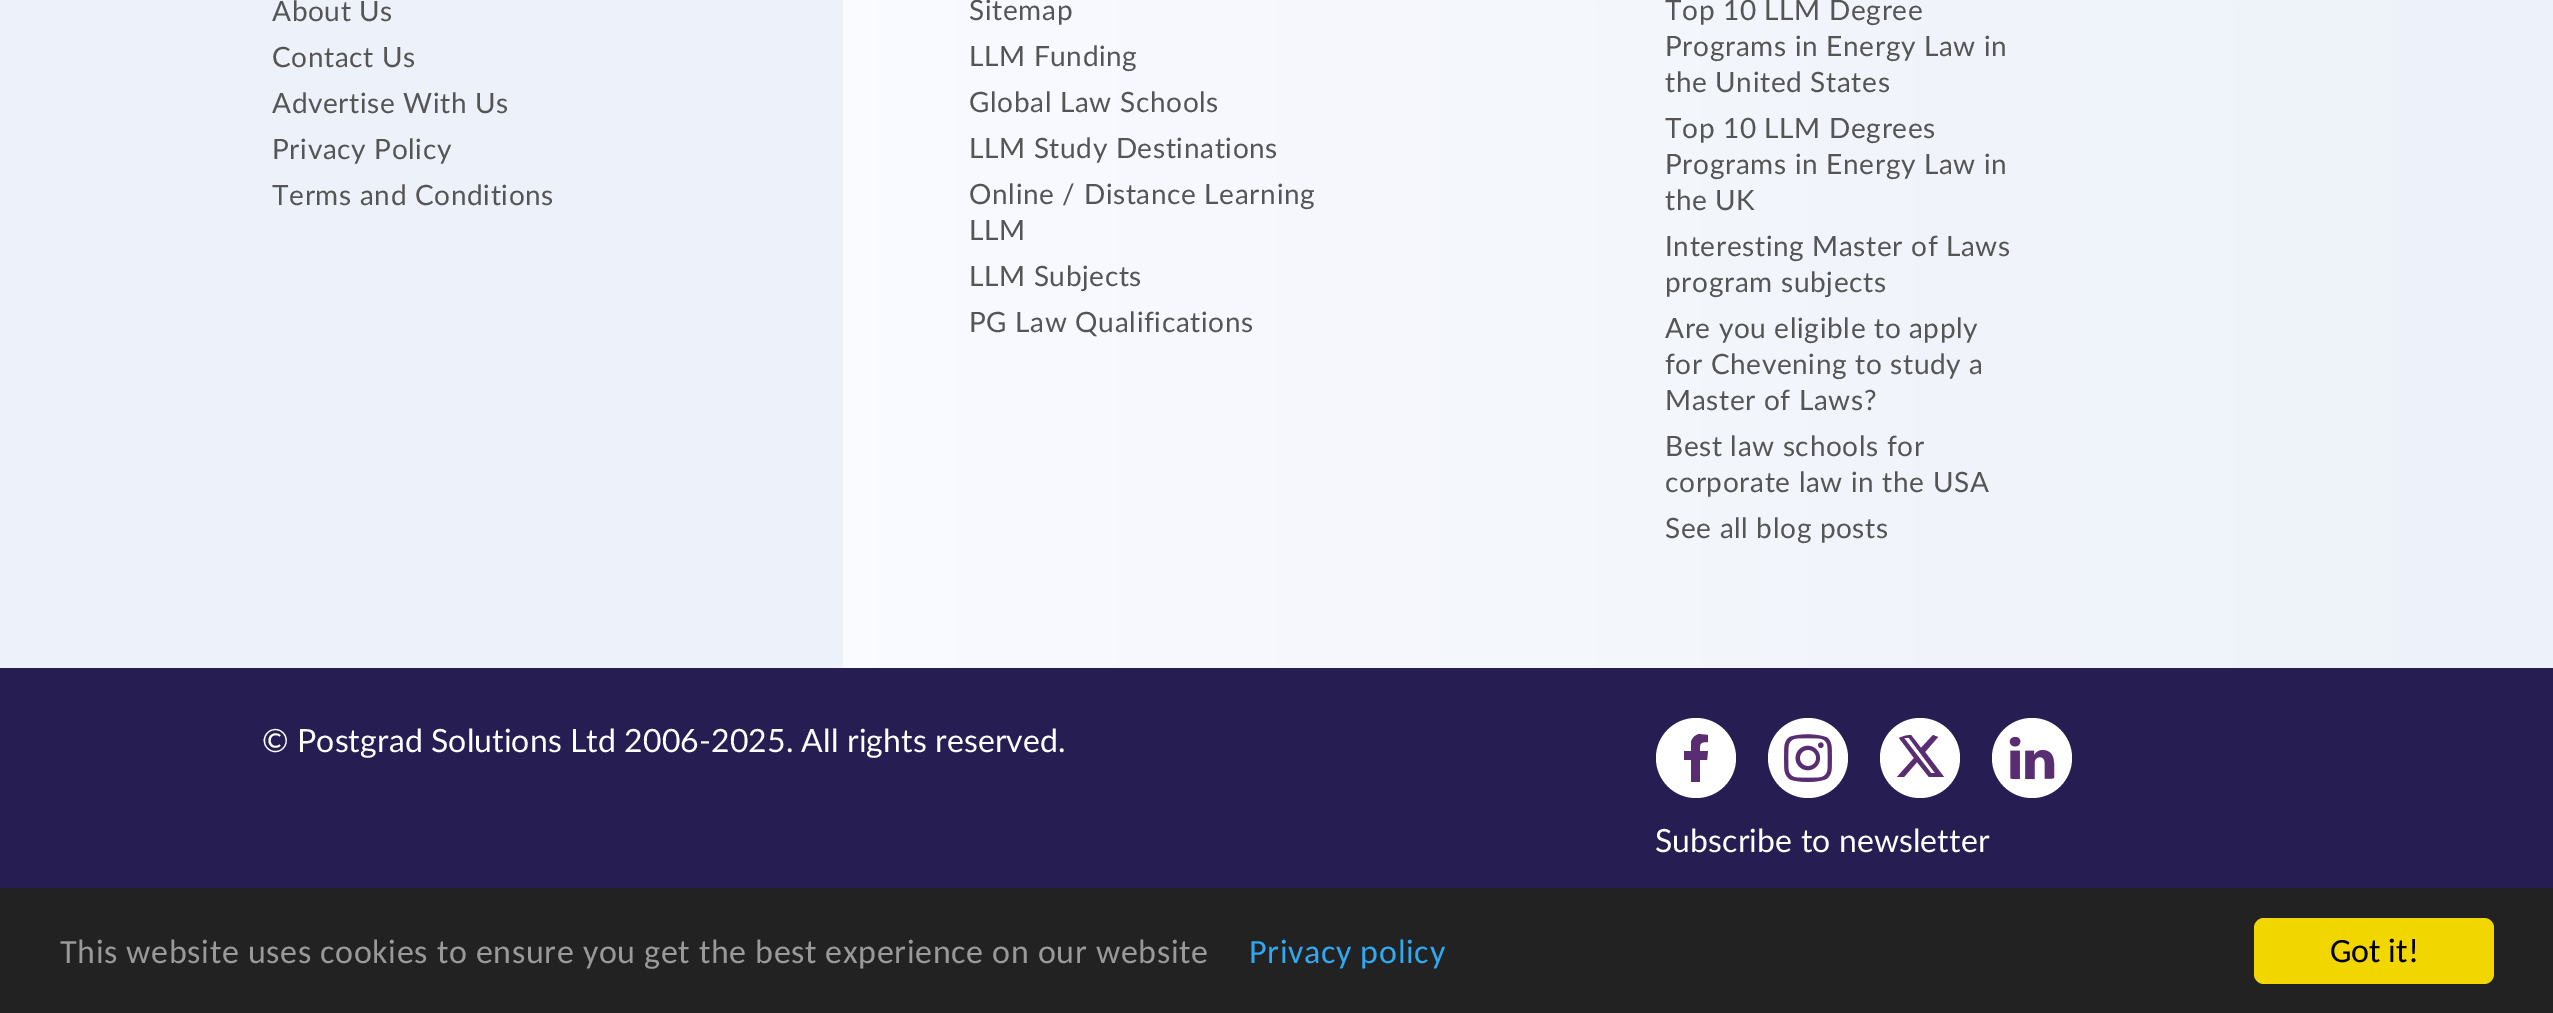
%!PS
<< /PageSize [2553 1013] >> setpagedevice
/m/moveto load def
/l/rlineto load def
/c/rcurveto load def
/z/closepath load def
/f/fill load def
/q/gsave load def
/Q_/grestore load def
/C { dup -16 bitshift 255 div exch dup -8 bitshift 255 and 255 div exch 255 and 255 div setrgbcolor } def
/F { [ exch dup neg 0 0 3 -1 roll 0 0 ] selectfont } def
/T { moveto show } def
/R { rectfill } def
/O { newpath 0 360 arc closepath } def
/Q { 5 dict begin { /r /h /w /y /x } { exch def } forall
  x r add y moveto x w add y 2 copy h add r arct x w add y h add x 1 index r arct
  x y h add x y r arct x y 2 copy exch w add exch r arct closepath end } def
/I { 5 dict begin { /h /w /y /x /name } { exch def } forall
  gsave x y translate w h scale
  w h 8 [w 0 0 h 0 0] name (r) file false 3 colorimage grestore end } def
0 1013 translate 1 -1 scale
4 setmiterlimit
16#FFFFFF C
0 0 2553 1013 R
q 0 0 m 2553 0 l 0 668 l -2553 0 l z clip newpath
<< /ShadingType 2 /ColorSpace /DeviceRGB /Coords [0 396 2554 396] /Extend [true true] /Function << /FunctionType 3 /Domain [0 1] /Functions [<< /FunctionType 2 /Domain [0 1] /C0 [.929 .945 .976] /C1 [.929 .945 .976] /N 1 >> << /FunctionType 2 /Domain [0 1] /C0 [.976 .984 1] /C1 [.929 .945 .976] /N 1 >>] /Bounds [.33] /Encode [0 1 0 1] >> >> shfill Q_
/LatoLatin-Regular 28 F
16#555555 C
272 21 m .65 0 (About Us) ashow
272 67 m .65 0 (Contact Us) ashow
272 113 m .65 0 (Advertise With Us) ashow
272 159 m .65 0 (Privacy Policy) ashow
272 205 m .65 0 (Terms and Conditions) ashow
969 20 m .65 0 (Sitemap) ashow
969 66 m .65 0 (LLM Funding) ashow
969 112 m .65 0 (Global Law Schools) ashow
969 158 m .65 0 (LLM Study Destinations) ashow
969 204 m .65 0 (Online / Distance Learning) ashow
969 240 m .65 0 (LLM) ashow
969 286 m .65 0 (LLM Subjects) ashow
969 332 m .65 0 (PG Law Qualifications) ashow
1665 20 m .65 0 (Top 10 LLM Degree) ashow
1665 56 m .65 0 (Programs in Energy Law in) ashow
1665 92 m .65 0 (the United States) ashow
1665 138 m .65 0 (Top 10 LLM Degrees) ashow
1665 174 m .65 0 (Programs in Energy Law in) ashow
1665 210 m .65 0 (the UK) ashow
1665 256 m .65 0 (Interesting Master of Laws) ashow
1665 292 m .65 0 (program subjects) ashow
1665 338 m .65 0 (Are you eligible to apply) ashow
1665 374 m .65 0 (for Chevening to study a) ashow
1665 410 m .65 0 (Master of Laws?) ashow
1665 456 m .65 0 (Best law schools for) ashow
1665 492 m .65 0 (corporate law in the USA) ashow
1665 538 m .65 0 (See all blog posts) ashow
16#261D53 C
0 668 2553 220 R
/LatoLatin-Regular 32 F
16#FFFFFF C
262 752 m .1 0 (© Postgrad Solutions Ltd 2006-2025. All rights reserved.) ashow
1696 758 40 O f
16#592D71 C
1708 735 m -9 -1 l -4 1 -7 4 -8 8 c 0 9 l -7 0 l 0 9 l 7 0 l 0 22 l 9 0 l 0 -22 l 7 0 l 1 -9 l -8 0 l 0 -7 -1 -9 8 -9 c z f
16#FFFFFF C
1808 758 40 O f
(1.rgb) 1784 734 48 48 I
1920 758 40 O f
16#592D71 C
1911 735 m 10 13 l 12 -13 l 5 2 l -13 15 l 19 25 l -15 0 l -12 -15 l -13 15 l -7 0 l 17 -19 l -15 -20 l 4 -2 8 -3 12 -3 c z 1931 773 m -27 -35 l 5 0 l 26 35 l z eofill
16#FFFFFF C
2032 758 40 O f
(2.rgb) 2009 736 46 44 I
1655 852 m .1 0 (Subscribe to newsletter) ashow
16#222222 C
0 888 2553 125 R
/Carlito-Regular 34 F
16#999999 C
60 963 m .65 0 (This website uses cookies to ensure you get the best experience on our website) ashow
16#31A8F0 C
1249 963 m .65 0 (Privacy policy) ashow
16#F1D600 C
2254 918 240 66 10 Q f
16#000000 C
(Got it!) 2330 962 T
showpage
